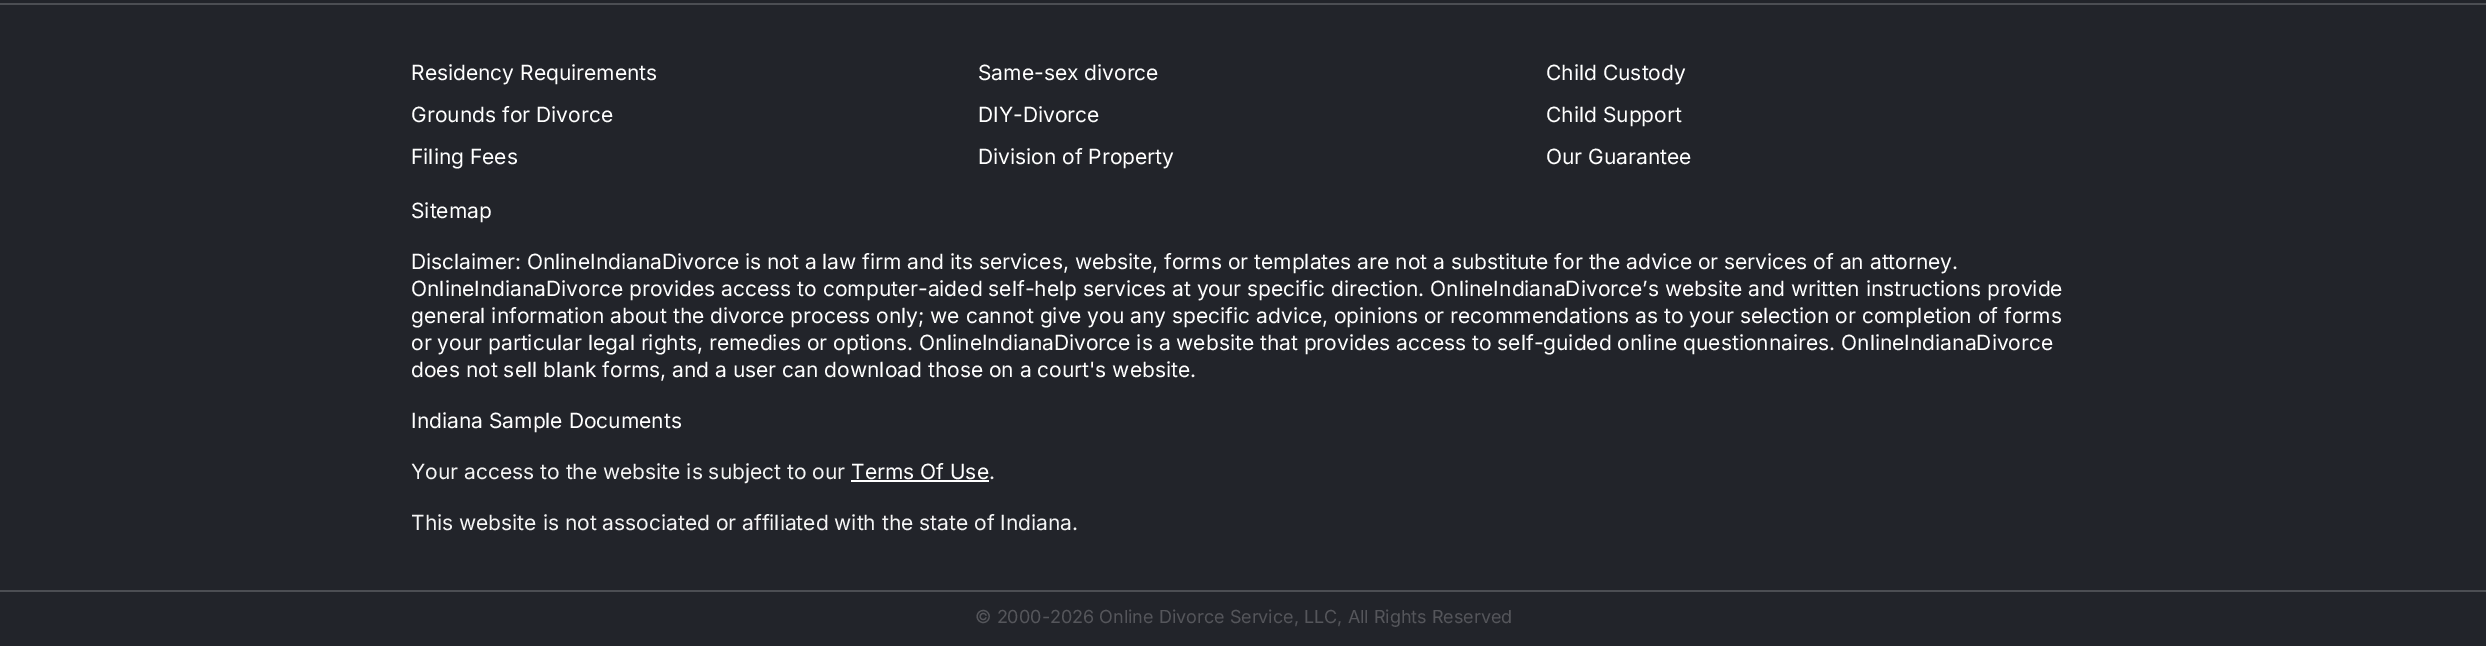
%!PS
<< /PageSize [2486 646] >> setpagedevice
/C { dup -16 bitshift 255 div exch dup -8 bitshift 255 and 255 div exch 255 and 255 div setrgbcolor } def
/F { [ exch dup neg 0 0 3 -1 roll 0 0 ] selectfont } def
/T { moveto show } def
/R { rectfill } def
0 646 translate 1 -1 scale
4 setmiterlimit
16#22242A C
0 0 2486 646 R
16#4C4E53 C
0 3 2486 2 R
/Inter-Regular 21 F
16#FFFFFF C
(Residency Requirements) 411 80 T
(Same-sex divorce) 978 80 T
(Child Custody) 1546 80 T
(Grounds for Divorce) 411 122 T
(DIY-Divorce) 978 122 T
(Child Support) 1546 122 T
(Filing Fees) 411 164 T
(Division of Property) 978 164 T
(Our Guarantee) 1546 164 T
(Sitemap) 411 218 T
(Disclaimer: OnlineIndianaDivorce is not a law firm and its services, website, forms or templates are not a substitute for the advice or services of an attorney.) 411 269 T
(OnlineIndianaDivorce provides access to computer-aided self-help services at your specific direction. OnlineIndianaDivorce’s website and written instructions provide) 411 296 T
(general information about the divorce process only; we cannot give you any specific advice, opinions or recommendations as to your selection or completion of forms) 411 323 T
(or your particular legal rights, remedies or options. OnlineIndianaDivorce is a website that provides access to self-guided online questionnaires. OnlineIndianaDivorce) 411 350 T
(does not sell blank forms, and a user can download those on a court's website.) 411 377 T
(Indiana Sample Documents) 411 428 T
16#F5F5F5 C
(Your access to the website is subject to our) 411 479 T
16#FFFFFF C
(Terms Of Use) 851 479 T
851 480 138 2 R
16#F5F5F5 C
(.) 989 479 T
(This website is not associated or affiliated with the state of Indiana.) 411 530 T
16#4C4E53 C
0 590 2486 2 R
/Inter-Regular 18 F
16#55565B C
(© 2000-2026 Online Divorce Service, LLC, All Rights Reserved) 975 623 T
showpage
